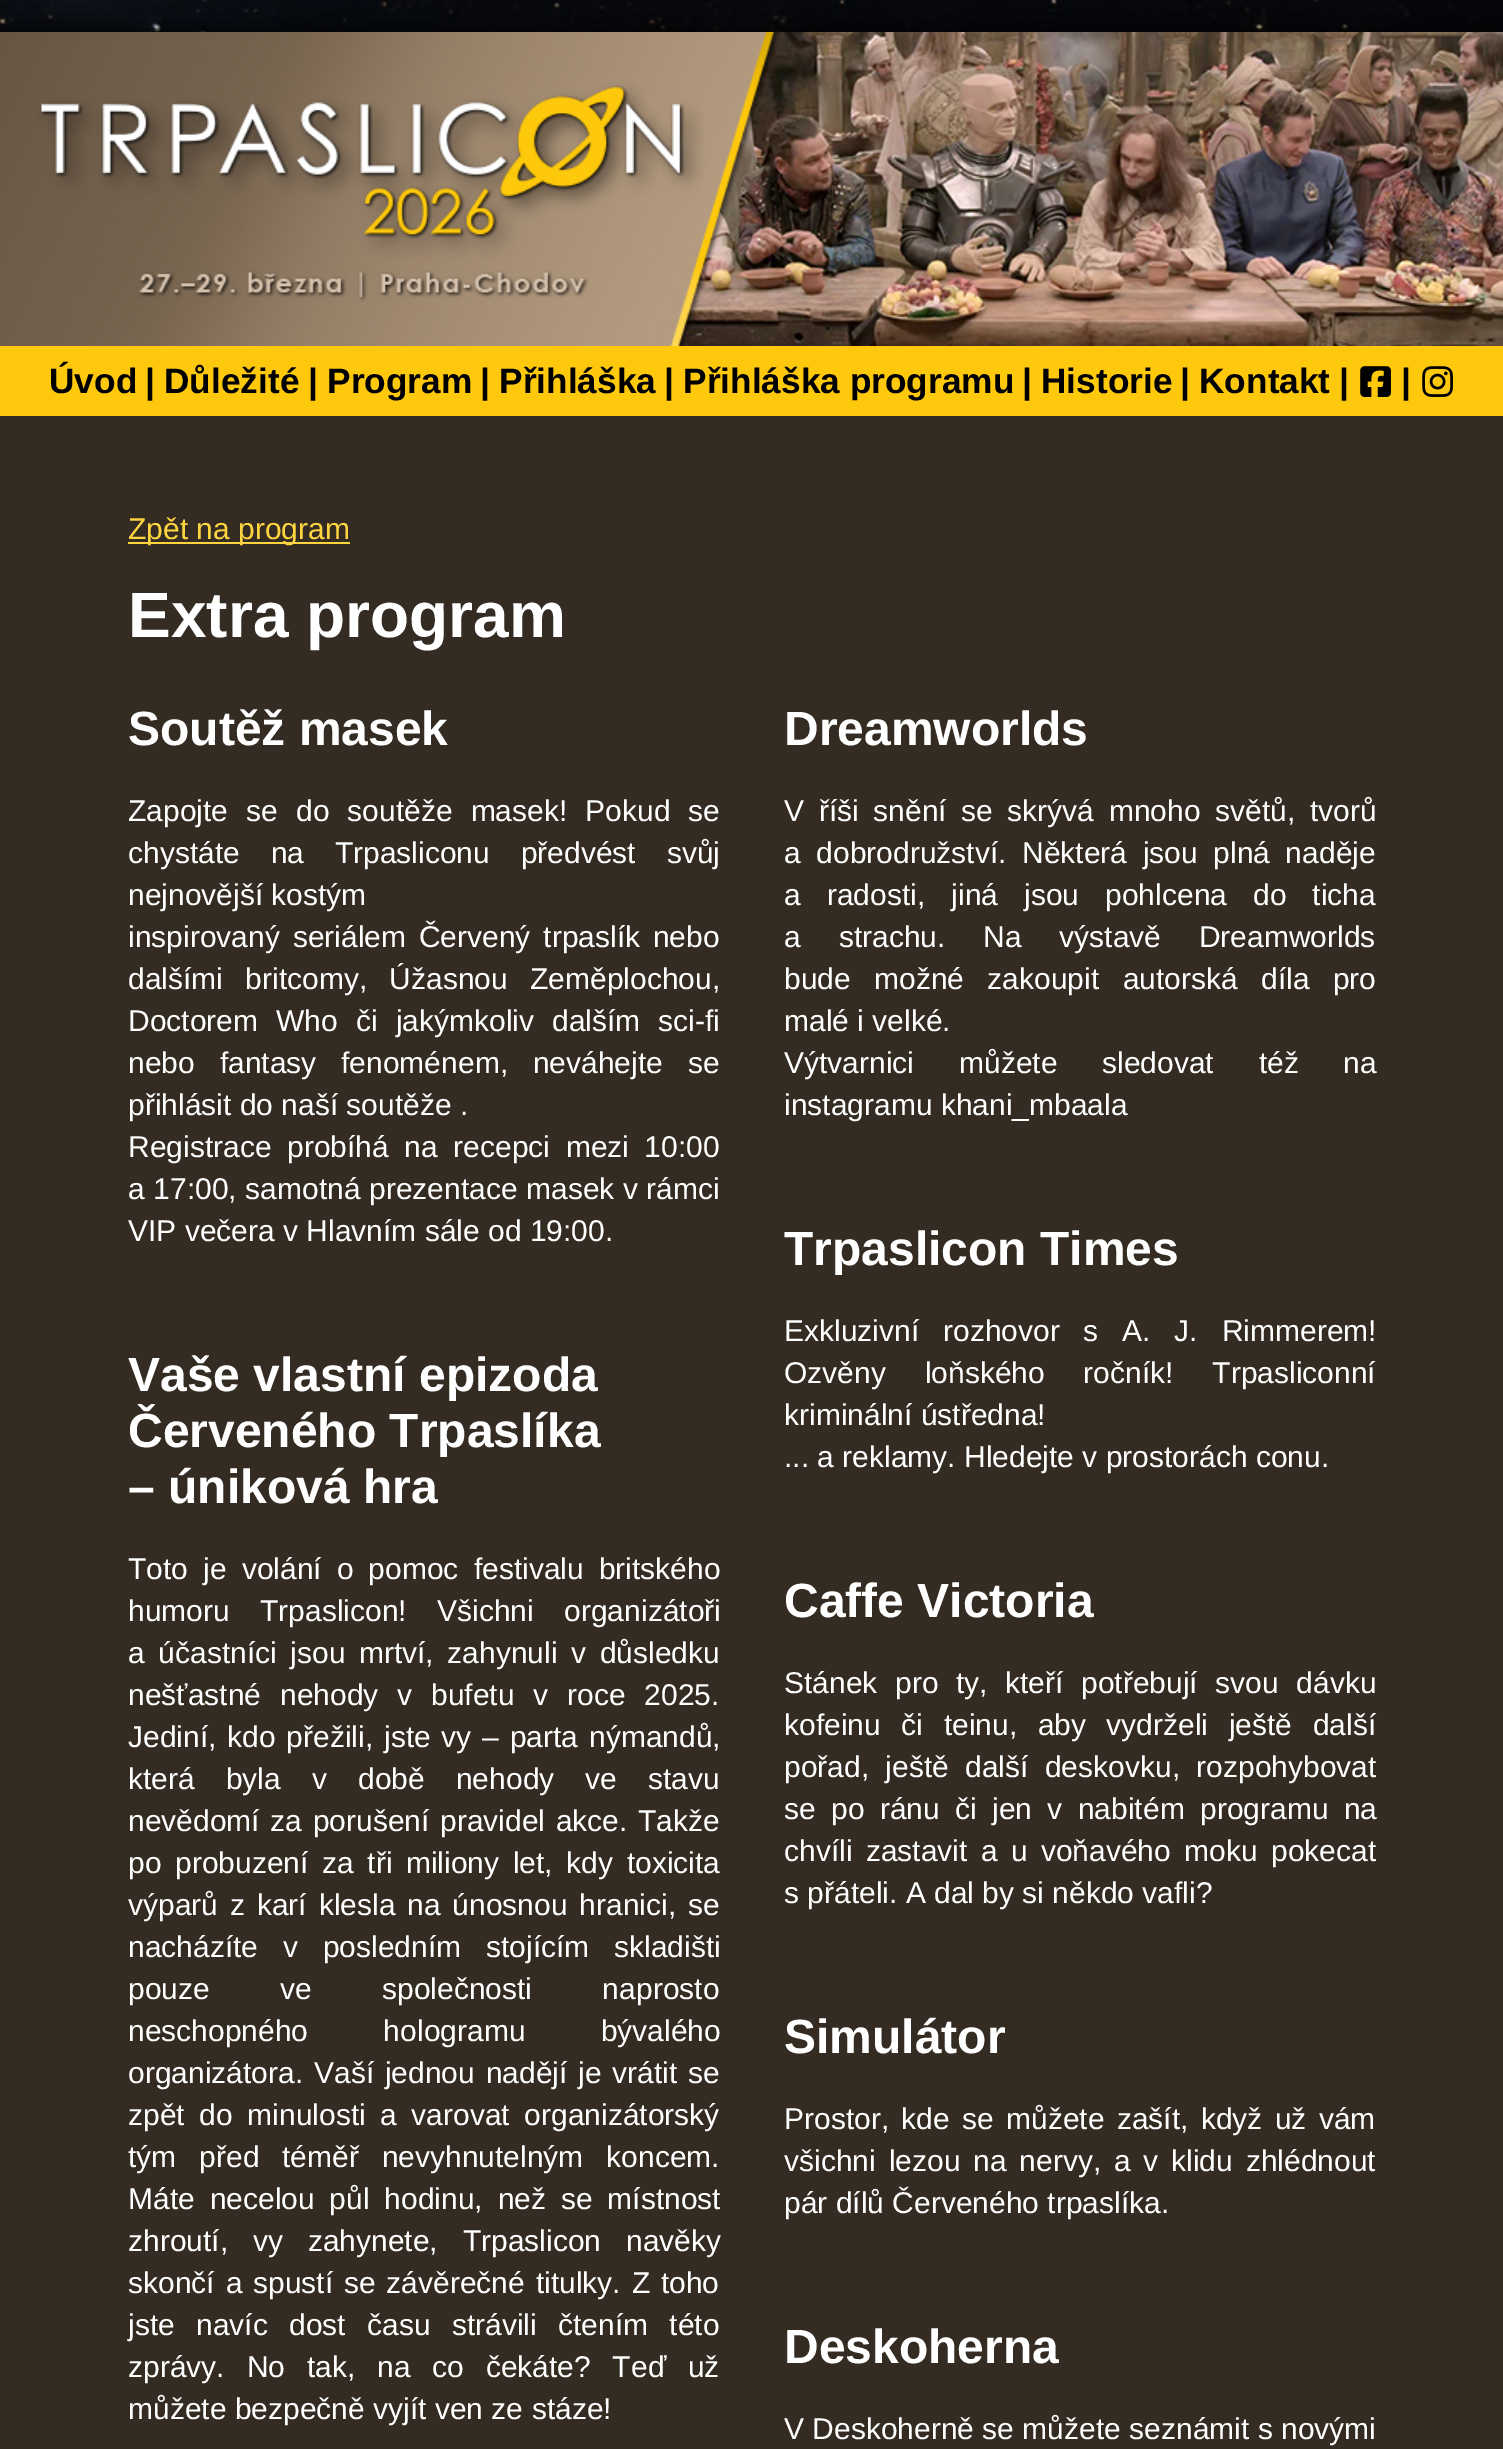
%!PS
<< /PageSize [1503 2449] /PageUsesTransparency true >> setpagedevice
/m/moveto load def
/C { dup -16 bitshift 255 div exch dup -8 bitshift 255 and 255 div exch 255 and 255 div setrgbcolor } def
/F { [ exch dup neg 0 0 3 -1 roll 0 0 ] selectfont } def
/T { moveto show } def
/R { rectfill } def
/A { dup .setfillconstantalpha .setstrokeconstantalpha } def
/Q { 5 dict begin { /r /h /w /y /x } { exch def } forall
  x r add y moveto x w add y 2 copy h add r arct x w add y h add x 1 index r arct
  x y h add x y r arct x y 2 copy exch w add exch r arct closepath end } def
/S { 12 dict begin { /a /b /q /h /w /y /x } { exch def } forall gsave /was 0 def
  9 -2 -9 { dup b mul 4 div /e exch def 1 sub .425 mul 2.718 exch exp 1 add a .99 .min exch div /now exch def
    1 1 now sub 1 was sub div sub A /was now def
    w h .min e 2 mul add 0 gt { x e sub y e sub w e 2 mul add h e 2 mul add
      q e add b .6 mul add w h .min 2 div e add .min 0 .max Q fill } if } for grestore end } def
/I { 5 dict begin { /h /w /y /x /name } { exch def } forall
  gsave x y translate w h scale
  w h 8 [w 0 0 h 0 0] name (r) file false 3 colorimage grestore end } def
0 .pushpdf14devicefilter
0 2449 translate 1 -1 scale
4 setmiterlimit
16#FFFFFF C
0 0 1503 2449 R
(1.rgb) 0 0 1503 32 I
16#000000 C
0 32 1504 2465 0 16 1 S
16#342C23 C
0 416 1503 2033 R
(2.rgb) 0 32 1503 314 I
16#FEC90C C
0 346 1503 70 R
/LiberationSans-Bold 35.25 F
16#000000 C
(Úvod) 49 393 T
(|) 145 393 T
(Důležité) 164 393 T
(|) 308 393 T
(Program) 327 393 T
(|) 480 393 T
(Přihláška) 499 393 T
(|) 664 393 T
(Přihláška programu) 683 393 T
(|) 1022 393 T
(Historie) 1041 393 T
(|) 1180 393 T
(Kontakt) 1199 393 T
(|) 1339 393 T
(3.rgb) 1360 366 31 31 I
(|) 1401 393 T
(4.rgb) 1422 366 31 31 I
16#FED43F C
128 542 222 2 R
/LiberationSans-Regular 30 F
(Zpět na program) 128 539 T
/LiberationSans-Bold 64 F
16#FFFFFF C
(Extra program) 128 637 T
/LiberationSans-Bold 48 F
(Soutěž masek) 128 745 T
/LiberationSans-Regular 30 F
128 821 m 9.75 0 32 (Zapojte se do soutěže masek! Pokud se) widthshow
128 863 m 22.5 0 32 (chystáte na Trpasliconu předvést svůj) widthshow
(nejnovější kostým) 128 905 T
128 947 m 4.5 0 32 (inspirovaný seriálem Červený trpaslík nebo) widthshow
128 989 m 14 0 32 (dalšími britcomy, Úžasnou Zeměplochou,) widthshow
128 1031 m 9.75 0 32 (Doctorem Who či jakýmkoliv dalším sci-fi) widthshow
128 1073 m 16.5 0 32 (nebo fantasy fenoménem, neváhejte se) widthshow
(přihlásit do naší soutěže .) 128 1115 T
128 1157 m 7.25 0 32 (Registrace probíhá na recepci mezi 10:00) widthshow
128 1199 m .25 0 32 (a 17:00, samotná prezentace masek v rámci) widthshow
(VIP večera v Hlavním sále od 19:00.) 128 1241 T
/LiberationSans-Bold 48 F
(Dreamworlds) 784 745 T
/LiberationSans-Regular 30 F
784 821 m 6.25 0 32 (V říši snění se skrývá mnoho světů, tvorů) widthshow
784 863 m 7.25 0 32 (a dobrodružství. Některá jsou plná naděje) widthshow
784 905 m 17.75 0 32 (a radosti, jiná jsou pohlcena do ticha) widthshow
784 947 m 29.5 0 32 (a strachu. Na výstavě Dreamworlds) widthshow
784 989 m 15 0 32 (bude možné zakoupit autorská díla pro) widthshow
(malé i velké.) 784 1031 T
784 1073 m 36.5 0 32 (Výtvarnici můžete sledovat též na) widthshow
(instagramu khani_mbaala) 784 1115 T
/LiberationSans-Bold 48 F
(Vaše vlastní epizoda) 128 1391 T
(Červeného Trpaslíka) 128 1447 T
(– úniková hra) 128 1503 T
/LiberationSans-Regular 30 F
128 1579 m 6.75 0 32 (Toto je volání o pomoc festivalu britského) widthshow
128 1621 m 22 0 32 (humoru Trpaslicon! Všichni organizátoři) widthshow
128 1663 m 5.25 0 32 (a účastníci jsou mrtví, zahynuli v důsledku) widthshow
128 1705 m 10.5 0 32 (nešťastné nehody v bufetu v roce 2025.) widthshow
128 1747 m 2.5 0 32 (Jediní, kdo přežili, jste vy – parta nýmandů,) widthshow
128 1789 m 22.75 0 32 (která byla v době nehody ve stavu) widthshow
128 1831 m 2.25 0 32 (nevědomí za porušení pravidel akce. Takže) widthshow
128 1873 m 5.25 0 32 (po probuzení za tři miliony let, kdy toxicita) widthshow
128 1915 m 3.5 0 32 (výparů z karí klesla na únosnou hranici, se) widthshow
128 1957 m 16.5 0 32 (nacházíte v posledním stojícím skladišti) widthshow
128 1999 m 62 0 32 (pouze ve společnosti naprosto) widthshow
128 2041 m 67 0 32 (neschopného hologramu bývalého) widthshow
128 2083 m 2.5 0 32 (organizátora. Vaší jednou nadějí je vrátit se) widthshow
128 2125 m 6.25 0 32 (zpět do minulosti a varovat organizátorský) widthshow
128 2167 m 14.5 0 32 (tým před téměř nevyhnutelným koncem.) widthshow
128 2209 m 6.5 0 32 (Máte necelou půl hodinu, než se místnost) widthshow
128 2251 m 16.5 0 32 (zhroutí, vy zahynete, Trpaslicon navěky) widthshow
128 2293 m 2.5 0 32 (skončí a spustí se závěrečné titulky. Z toho) widthshow
128 2335 m 13 0 32 (jste navíc dost času strávili čtením této) widthshow
128 2377 m 13.5 0 32 (zprávy. No tak, na co čekáte? Teď už) widthshow
(můžete bezpečně vyjít ven ze stáze!) 128 2419 T
/LiberationSans-Bold 48 F
(Trpaslicon Times) 784 1265 T
/LiberationSans-Regular 30 F
784 1341 m 15.5 0 32 (Exkluzivní rozhovor s A. J. Rimmerem!) widthshow
784 1383 m 30.5 0 32 (Ozvěny loňského ročník! Trpasliconní) widthshow
(kriminální ústředna!) 784 1425 T
(... a reklamy. Hledejte v prostorách conu.) 784 1467 T
/LiberationSans-Bold 48 F
(Caffe Victoria) 784 1617 T
/LiberationSans-Regular 30 F
784 1693 m 9.25 0 32 (Stánek pro ty, kteří potřebují svou dávku) widthshow
784 1735 m 12.25 0 32 (kofeinu či teinu, aby vydrželi ještě další) widthshow
784 1777 m 8 0 32 (pořad, ještě další deskovku, rozpohybovat) widthshow
784 1819 m 7 0 32 (se po ránu či jen v nabitém programu na) widthshow
784 1861 m 5 0 32 (chvíli zastavit a u voňavého moku pokecat) widthshow
(s přáteli. A dal by si někdo vafli?) 784 1903 T
/LiberationSans-Bold 48 F
(Simulátor) 784 2053 T
/LiberationSans-Regular 30 F
784 2129 m 4 0 32 (Prostor, kde se můžete zašít, když už vám) widthshow
784 2171 m 4.5 0 32 (všichni lezou na nervy, a v klidu zhlédnout) widthshow
(pár dílů Červeného trpaslíka.) 784 2213 T
/LiberationSans-Bold 48 F
(Deskoherna) 784 2363 T
/LiberationSans-Regular 30 F
(V Deskoherně se můžete seznámit s novými) 784 2439 T
.poppdf14devicefilter showpage
